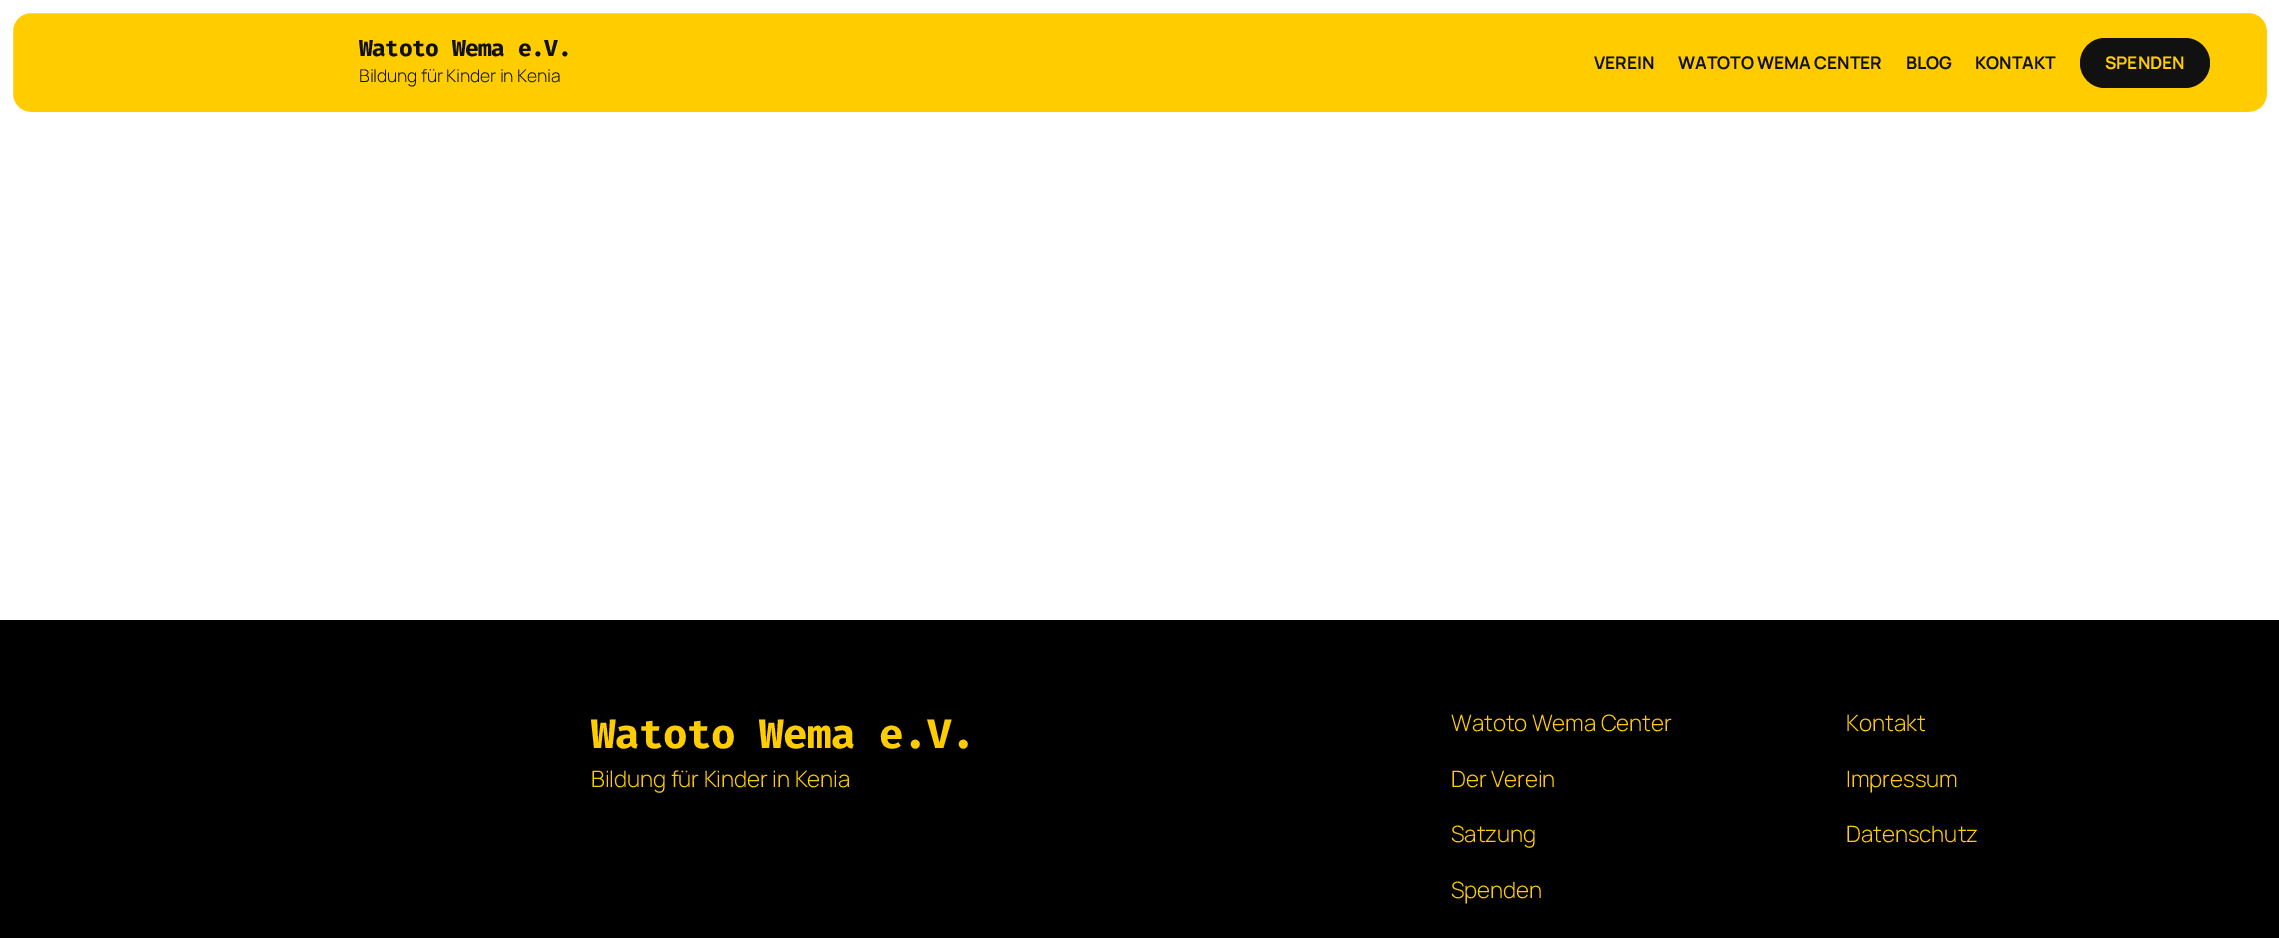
%!PS
<< /PageSize [2279 938] >> setpagedevice
/m/moveto load def
/f/fill load def
/s/stroke load def
/q/gsave load def
/Q_/grestore load def
/w/setlinewidth load def
/C { dup -16 bitshift 255 div exch dup -8 bitshift 255 and 255 div exch 255 and 255 div setrgbcolor } def
/F { [ exch dup neg 0 0 3 -1 roll 0 0 ] selectfont } def
/R { rectfill } def
/Q { 5 dict begin { /r /h /w /y /x } { exch def } forall
  x r add y moveto x w add y 2 copy h add r arct x w add y h add x 1 index r arct
  x y h add x y r arct x y 2 copy exch w add exch r arct closepath end } def
0 938 translate 1 -1 scale
4 setmiterlimit
16#FFFFFF C
0 0 2279 938 R
16#FFCC00 C
6.5 6.5 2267 112 24.5 Q q f Q_
16#FFFFFF C
13 w
s
/FiraCode-Bold 22.5 F
16#111111 C
359 56 m -.6 0 (Watoto Wema e.V.) ashow
/Manrope-Light 17.5 F
359 82 m -.1 0 (Bildung für Kinder in Kenia) ashow
/Manrope-Bold 17.5 F
1594 69 m -.1 0 (VEREIN) ashow
1678 69 m -.1 0 (WATOTO WEMA CENTER) ashow
1906 69 m -.1 0 (BLOG) ashow
1975 69 m -.1 0 (KONTAKT) ashow
2080 38 130 50 25 Q f
16#FFCC00 C
2105 69 m -.1 0 (SPENDEN) ashow
16#000000 C
0 620 2279 318 R
/FiraCode-Bold 40 F
16#FFCC00 C
591 748 m -.6 0 (Watoto Wema e.V.) ashow
/Manrope-Light 22.5 F
591 787 m -.1 0 (Bildung für Kinder in Kenia) ashow
1451 731 m -.1 0 (Watoto Wema Center) ashow
1451 787 m -.1 0 (Der Verein) ashow
1451 842 m -.1 0 (Satzung) ashow
1451 898 m -.1 0 (Spenden) ashow
1846 731 m -.1 0 (Kontakt) ashow
1846 787 m -.1 0 (Impressum) ashow
1846 842 m -.1 0 (Datenschutz) ashow
showpage
